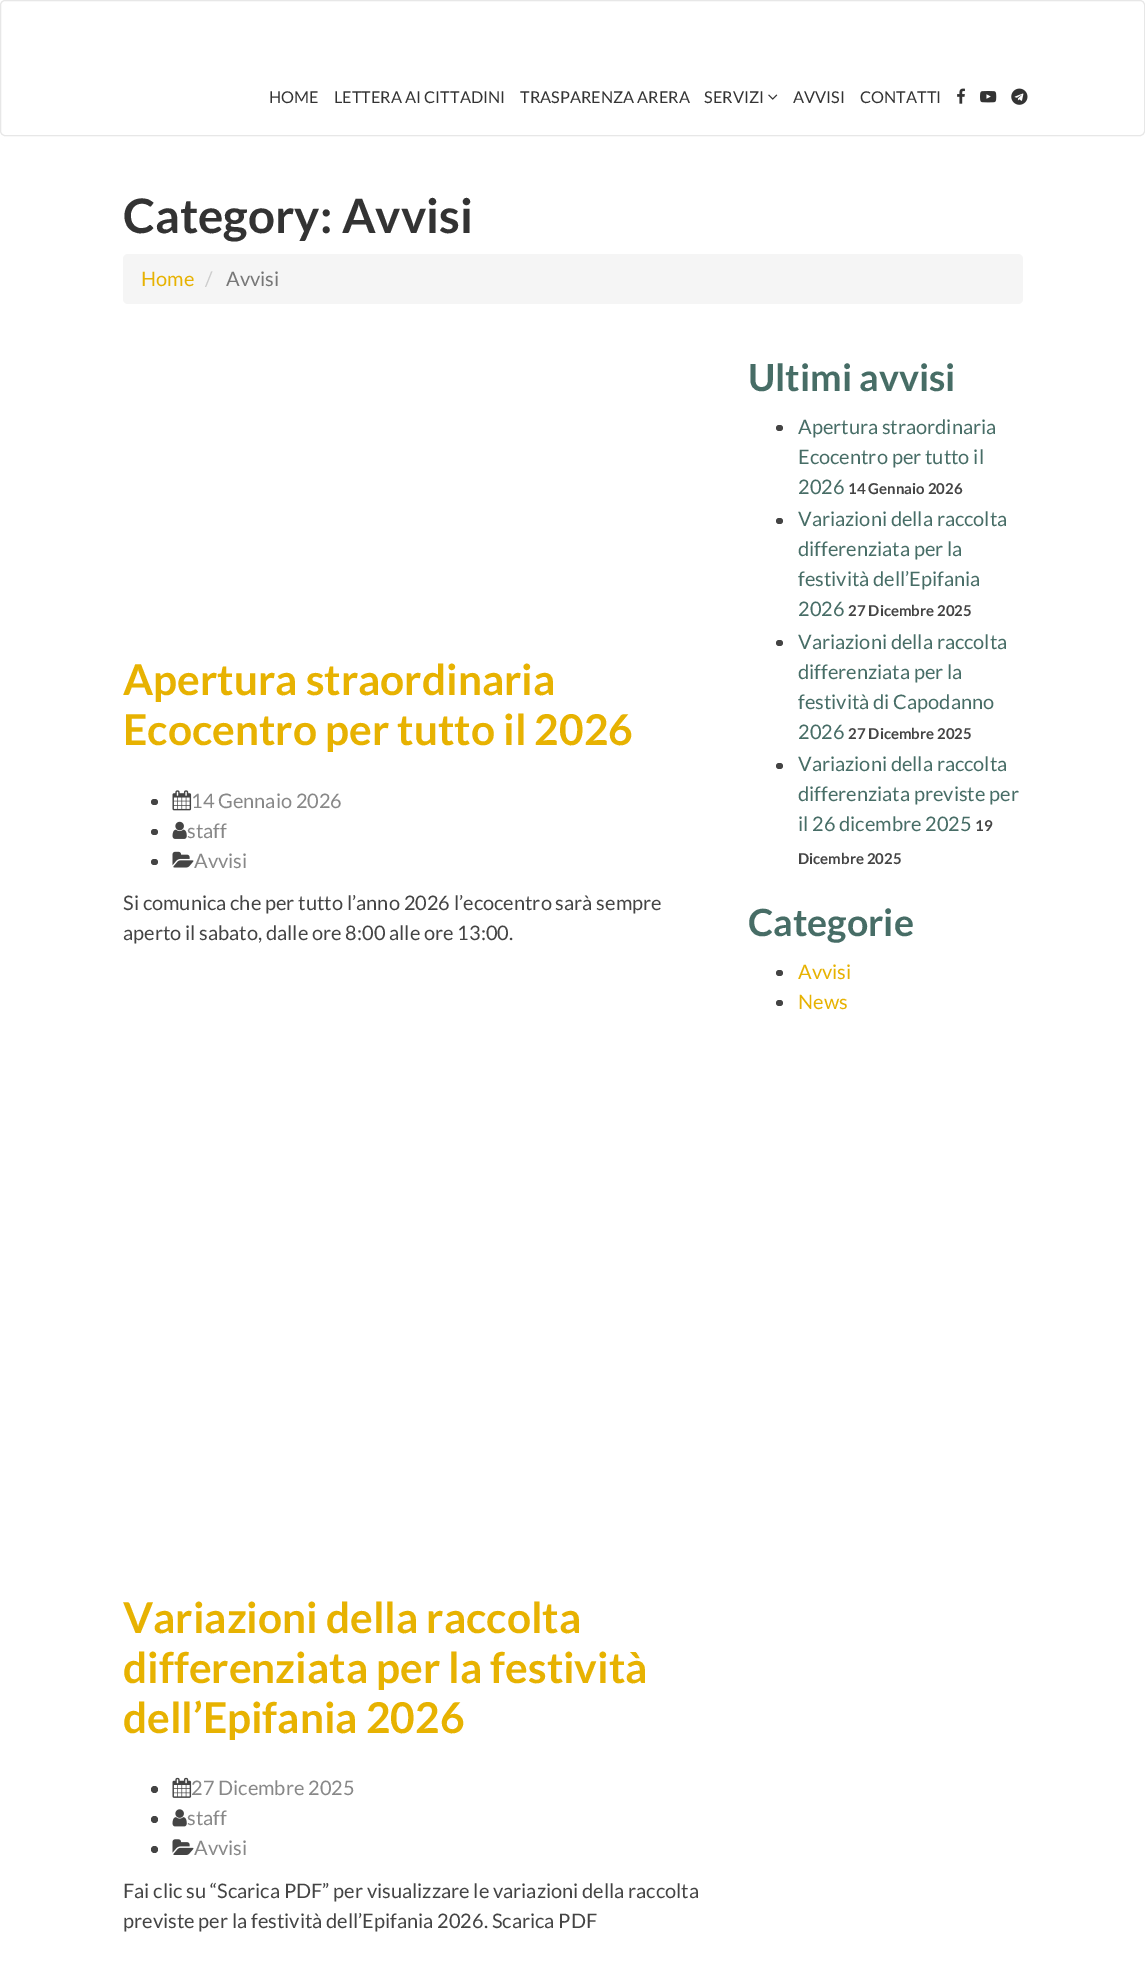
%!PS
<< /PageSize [1145 1975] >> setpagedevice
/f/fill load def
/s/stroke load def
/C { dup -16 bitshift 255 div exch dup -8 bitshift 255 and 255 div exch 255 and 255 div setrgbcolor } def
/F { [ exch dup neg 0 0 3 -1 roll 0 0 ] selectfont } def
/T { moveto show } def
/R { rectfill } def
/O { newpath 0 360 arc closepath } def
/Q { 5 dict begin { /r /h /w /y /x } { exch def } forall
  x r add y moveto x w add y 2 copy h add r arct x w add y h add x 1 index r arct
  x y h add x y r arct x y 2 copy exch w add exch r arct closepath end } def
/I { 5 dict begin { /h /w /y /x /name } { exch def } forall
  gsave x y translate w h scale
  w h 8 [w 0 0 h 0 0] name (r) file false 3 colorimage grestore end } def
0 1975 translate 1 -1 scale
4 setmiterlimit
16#FFFFFF C
0 0 1145 1975 R
16#E7E7E7 C
.5 .5 1144 135 4.5 Q s
/Lato-Regular 16.25 F
16#333333 C
(HOME) 269 103 T
(LETTERA AI CITTADINI) 334 103 T
(TRASPARENZA ARERA) 520 103 T
(SERVIZI) 704 103 T
(1.rgb) 768 94 10 6 I
(AVVISI) 793 103 T
(CONTATTI) 860 103 T
(2.rgb) 957 88 8 16 I
(3.rgb) 980 91 17 12 I
(4.rgb) 1011 88 17 17 I
/Lato-Bold 47.5 F
(Category: Avvisi) 123 233 T
16#F5F5F5 C
123 254 900 50 5 Q f
/Lato-Regular 20 F
16#E7B201 C
(Home) 141 286 T
16#CCCCCC C
(/) 205 286 T
16#777777 C
(Avvisi) 226 286 T
/Lato-Bold 42.5 F
16#E7B201 C
(Apertura straordinaria) 123 695 T
(Ecocentro per tutto il 2026) 123 745 T
16#444444 C
151 799 7 6 3 Q f
(5.rgb) 172 790 20 21 I
/Lato-Regular 20 F
16#888888 C
(14 Gennaio 2026) 191 808 T
16#444444 C
151 829 7 6 3 Q f
(6.rgb) 172 821 15 18 I
16#888888 C
(staff) 187 838 T
16#444444 C
151 859 7 6 3 Q f
(7.rgb) 172 851 22 17 I
16#888888 C
(Avvisi) 194 868 T
16#444444 C
(Si comunica che per tutto l’anno 2026 l’ecocentro sarà sempre) 123 910 T
(aperto il sabato, dalle ore 8:00 alle ore 13:00.) 123 940 T
/Lato-Bold 42.5 F
16#E7B201 C
(Variazioni della raccolta) 123 1633 T
(differenziata per la festività) 123 1683 T
(dell’Epifania 2026) 123 1733 T
16#444444 C
154.5 1789.5 3.5 O f
(8.rgb) 172 1777 20 21 I
/Lato-Regular 20 F
16#888888 C
(27 Dicembre 2025) 191 1795 T
16#444444 C
154.5 1819.5 3.5 O f
(9.rgb) 172 1809 15 18 I
16#888888 C
(staff) 187 1825 T
16#444444 C
154.5 1849.5 3.5 O f
(10.rgb) 172 1839 22 16 I
16#888888 C
(Avvisi) 194 1855 T
16#444444 C
(Fai clic su “Scarica PDF” per visualizzare le variazioni della raccolta) 123 1898 T
(previste per la festività dell’Epifania 2026. Scarica PDF) 123 1928 T
/Lato-Bold 37.5 F
16#476D66 C
(Ultimi avvisi) 748 391 T
16#444444 C
776 425 7 6 3 Q f
/Lato-Regular 20 F
16#476D66 C
(Apertura straordinaria) 798 434 T
(Ecocentro per tutto il) 798 464 T
(2026) 798 494 T
/Lato-Bold 15 F
16#444444 C
(14 Gennaio 2026) 848 494 T
776 518 7 6 3 Q f
/Lato-Regular 20 F
16#476D66 C
(Variazioni della raccolta) 798 526 T
(differenziata per la) 798 556 T
(festività dell’Epifania) 798 586 T
(2026) 798 616 T
/Lato-Bold 15 F
16#444444 C
(27 Dicembre 2025) 848 616 T
776 640 7 6 3 Q f
/Lato-Regular 20 F
16#476D66 C
(Variazioni della raccolta) 798 649 T
(differenziata per la) 798 679 T
(festività di Capodanno) 798 709 T
(2026) 798 739 T
/Lato-Bold 15 F
16#444444 C
(27 Dicembre 2025) 848 739 T
776 763 7 6 3 Q f
/Lato-Regular 20 F
16#476D66 C
(Variazioni della raccolta) 798 771 T
(differenziata previste per) 798 801 T
(il 26 dicembre 2025) 798 831 T
/Lato-Bold 15 F
16#444444 C
(19) 975 831 T
(Dicembre 2025) 798 864 T
/Lato-Bold 37.5 F
16#476D66 C
(Categorie) 748 936 T
16#444444 C
776 970 7 6 3 Q f
/Lato-Regular 20 F
16#E7B201 C
(Avvisi) 798 979 T
16#444444 C
776 1000 7 6 3 Q f
16#E7B201 C
(News) 798 1009 T
showpage
